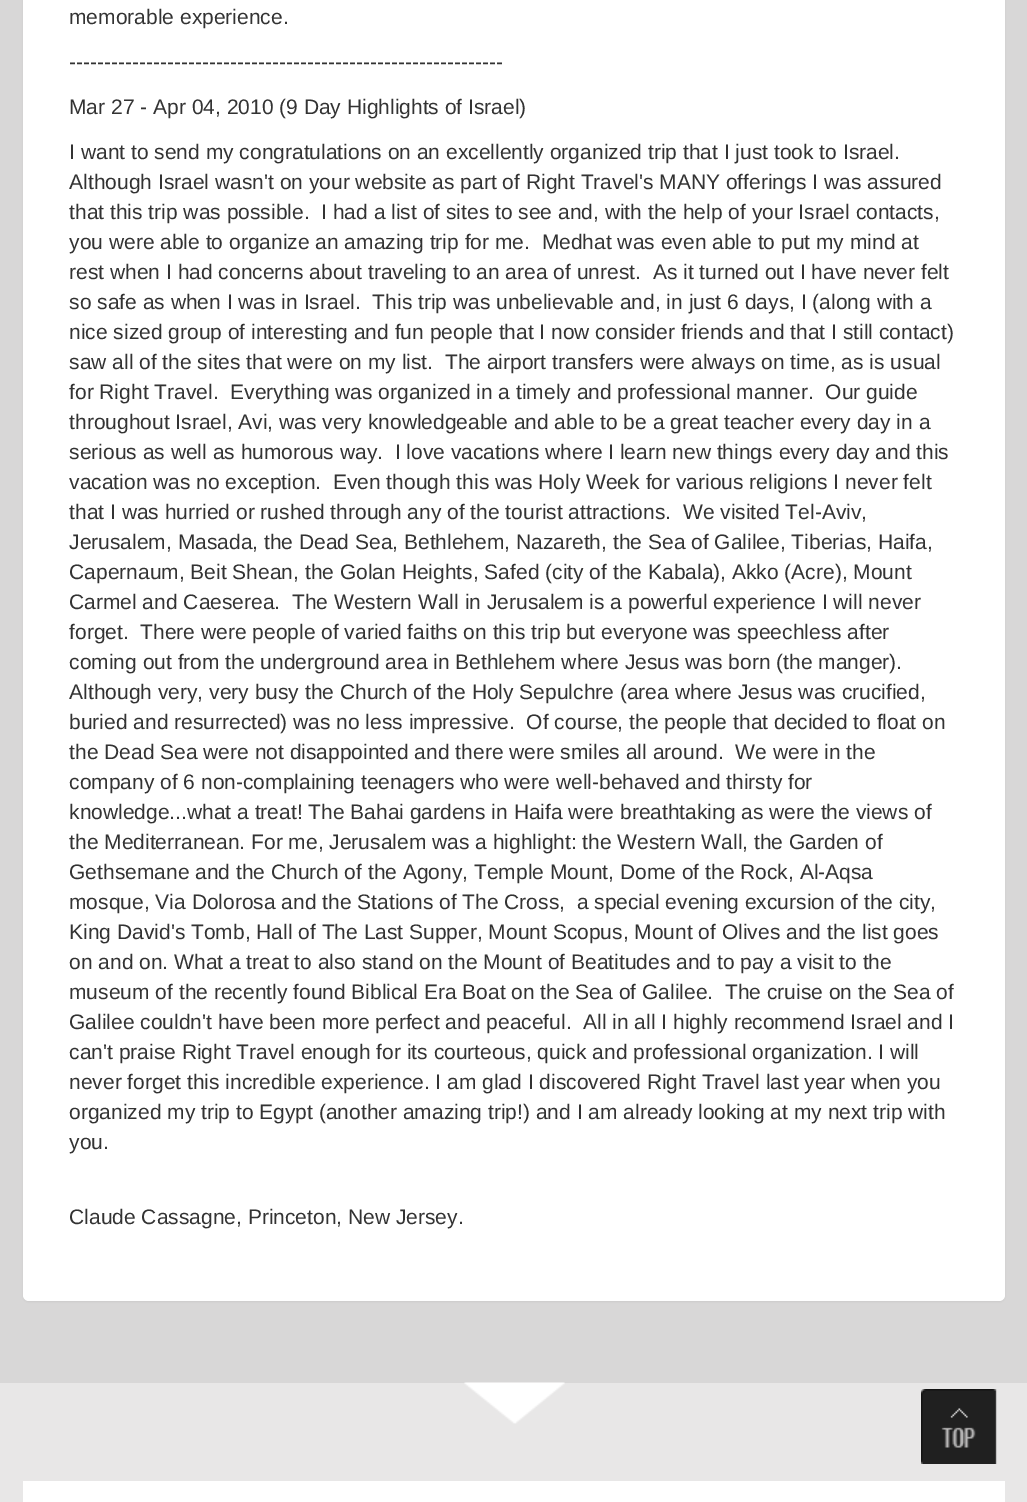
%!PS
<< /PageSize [1027 1502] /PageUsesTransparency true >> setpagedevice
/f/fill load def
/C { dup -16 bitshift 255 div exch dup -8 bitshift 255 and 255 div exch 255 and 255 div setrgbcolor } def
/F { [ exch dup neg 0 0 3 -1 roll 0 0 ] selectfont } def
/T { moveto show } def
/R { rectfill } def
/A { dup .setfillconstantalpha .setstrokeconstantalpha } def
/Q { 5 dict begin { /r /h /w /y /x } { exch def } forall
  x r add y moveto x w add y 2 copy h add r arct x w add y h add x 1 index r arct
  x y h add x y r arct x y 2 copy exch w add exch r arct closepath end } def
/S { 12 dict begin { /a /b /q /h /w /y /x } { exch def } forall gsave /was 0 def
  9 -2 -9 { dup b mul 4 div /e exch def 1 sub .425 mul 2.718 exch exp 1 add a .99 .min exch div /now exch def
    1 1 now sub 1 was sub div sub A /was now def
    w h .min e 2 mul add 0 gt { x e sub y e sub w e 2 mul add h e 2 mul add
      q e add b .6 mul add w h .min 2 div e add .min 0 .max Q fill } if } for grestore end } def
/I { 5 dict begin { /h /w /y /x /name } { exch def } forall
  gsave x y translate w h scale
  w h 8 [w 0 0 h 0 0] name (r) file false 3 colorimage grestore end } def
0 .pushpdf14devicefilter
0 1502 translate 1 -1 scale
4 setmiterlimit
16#D8D7D7 C
0 0 1027 1502 R
16#000000 C
23 -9 982 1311 6 1 .05 S
16#FFFFFF C
23 -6 982 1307 6 Q f
/LiberationSans-Regular 21 F
16#333333 C
(memorable experience.) 69 24 T
(--------------------------------------------------------------) 69 69 T
(Mar 27 - Apr 04, 2010 \(9 Day Highlights of Israel\)) 69 114 T
(I want to send my congratulations on an excellently organized trip that I just took to Israel.) 69 159 T
(Although Israel wasn't on your website as part of Right Travel's MANY offerings I was assured) 69 189 T
(that this trip was possible.  I had a list of sites to see and, with the help of your Israel contacts,) 69 219 T
(you were able to organize an amazing trip for me.  Medhat was even able to put my mind at) 69 249 T
(rest when I had concerns about traveling to an area of unrest.  As it turned out I have never felt) 69 279 T
(so safe as when I was in Israel.  This trip was unbelievable and, in just 6 days, I \(along with a) 69 309 T
(nice sized group of interesting and fun people that I now consider friends and that I still contact\)) 69 339 T
(saw all of the sites that were on my list.  The airport transfers were always on time, as is usual) 69 369 T
(for Right Travel.  Everything was organized in a timely and professional manner.  Our guide) 69 399 T
(throughout Israel, Avi, was very knowledgeable and able to be a great teacher every day in a) 69 429 T
(serious as well as humorous way.  I love vacations where I learn new things every day and this) 69 459 T
(vacation was no exception.  Even though this was Holy Week for various religions I never felt) 69 489 T
(that I was hurried or rushed through any of the tourist attractions.  We visited Tel-Aviv,) 69 519 T
(Jerusalem, Masada, the Dead Sea, Bethlehem, Nazareth, the Sea of Galilee, Tiberias, Haifa,) 69 549 T
(Capernaum, Beit Shean, the Golan Heights, Safed \(city of the Kabala\), Akko \(Acre\), Mount) 69 579 T
(Carmel and Caeserea.  The Western Wall in Jerusalem is a powerful experience I will never) 69 609 T
(forget.  There were people of varied faiths on this trip but everyone was speechless after) 69 639 T
(coming out from the underground area in Bethlehem where Jesus was born \(the manger\).) 69 669 T
(Although very, very busy the Church of the Holy Sepulchre \(area where Jesus was crucified,) 69 699 T
(buried and resurrected\) was no less impressive.  Of course, the people that decided to float on) 69 729 T
(the Dead Sea were not disappointed and there were smiles all around.  We were in the) 69 759 T
(company of 6 non-complaining teenagers who were well-behaved and thirsty for) 69 789 T
(knowledge...what a treat! The Bahai gardens in Haifa were breathtaking as were the views of) 69 819 T
(the Mediterranean. For me, Jerusalem was a highlight: the Western Wall, the Garden of) 69 849 T
(Gethsemane and the Church of the Agony, Temple Mount, Dome of the Rock, Al-Aqsa) 69 879 T
(mosque, Via Dolorosa and the Stations of The Cross,  a special evening excursion of the city,) 69 909 T
(King David's Tomb, Hall of The Last Supper, Mount Scopus, Mount of Olives and the list goes) 69 939 T
(on and on. What a treat to also stand on the Mount of Beatitudes and to pay a visit to the) 69 969 T
(museum of the recently found Biblical Era Boat on the Sea of Galilee.  The cruise on the Sea of) 69 999 T
(Galilee couldn't have been more perfect and peaceful.  All in all I highly recommend Israel and I) 69 1029 T
(can't praise Right Travel enough for its courteous, quick and professional organization. I will) 69 1059 T
(never forget this incredible experience. I am glad I discovered Right Travel last year when you) 69 1089 T
(organized my trip to Egypt \(another amazing trip!\) and I am already looking at my next trip with) 69 1119 T
(you.) 69 1149 T
(Claude Cassagne, Princeton, New Jersey.) 69 1224 T
16#E8E7E7 C
0 1383 1027 119 R
(1.rgb) 464 1382 101 42 I
16#FFFFFF C
23 1481 982 21 R
(2.rgb) 921 1389 76 75 I
.poppdf14devicefilter showpage
